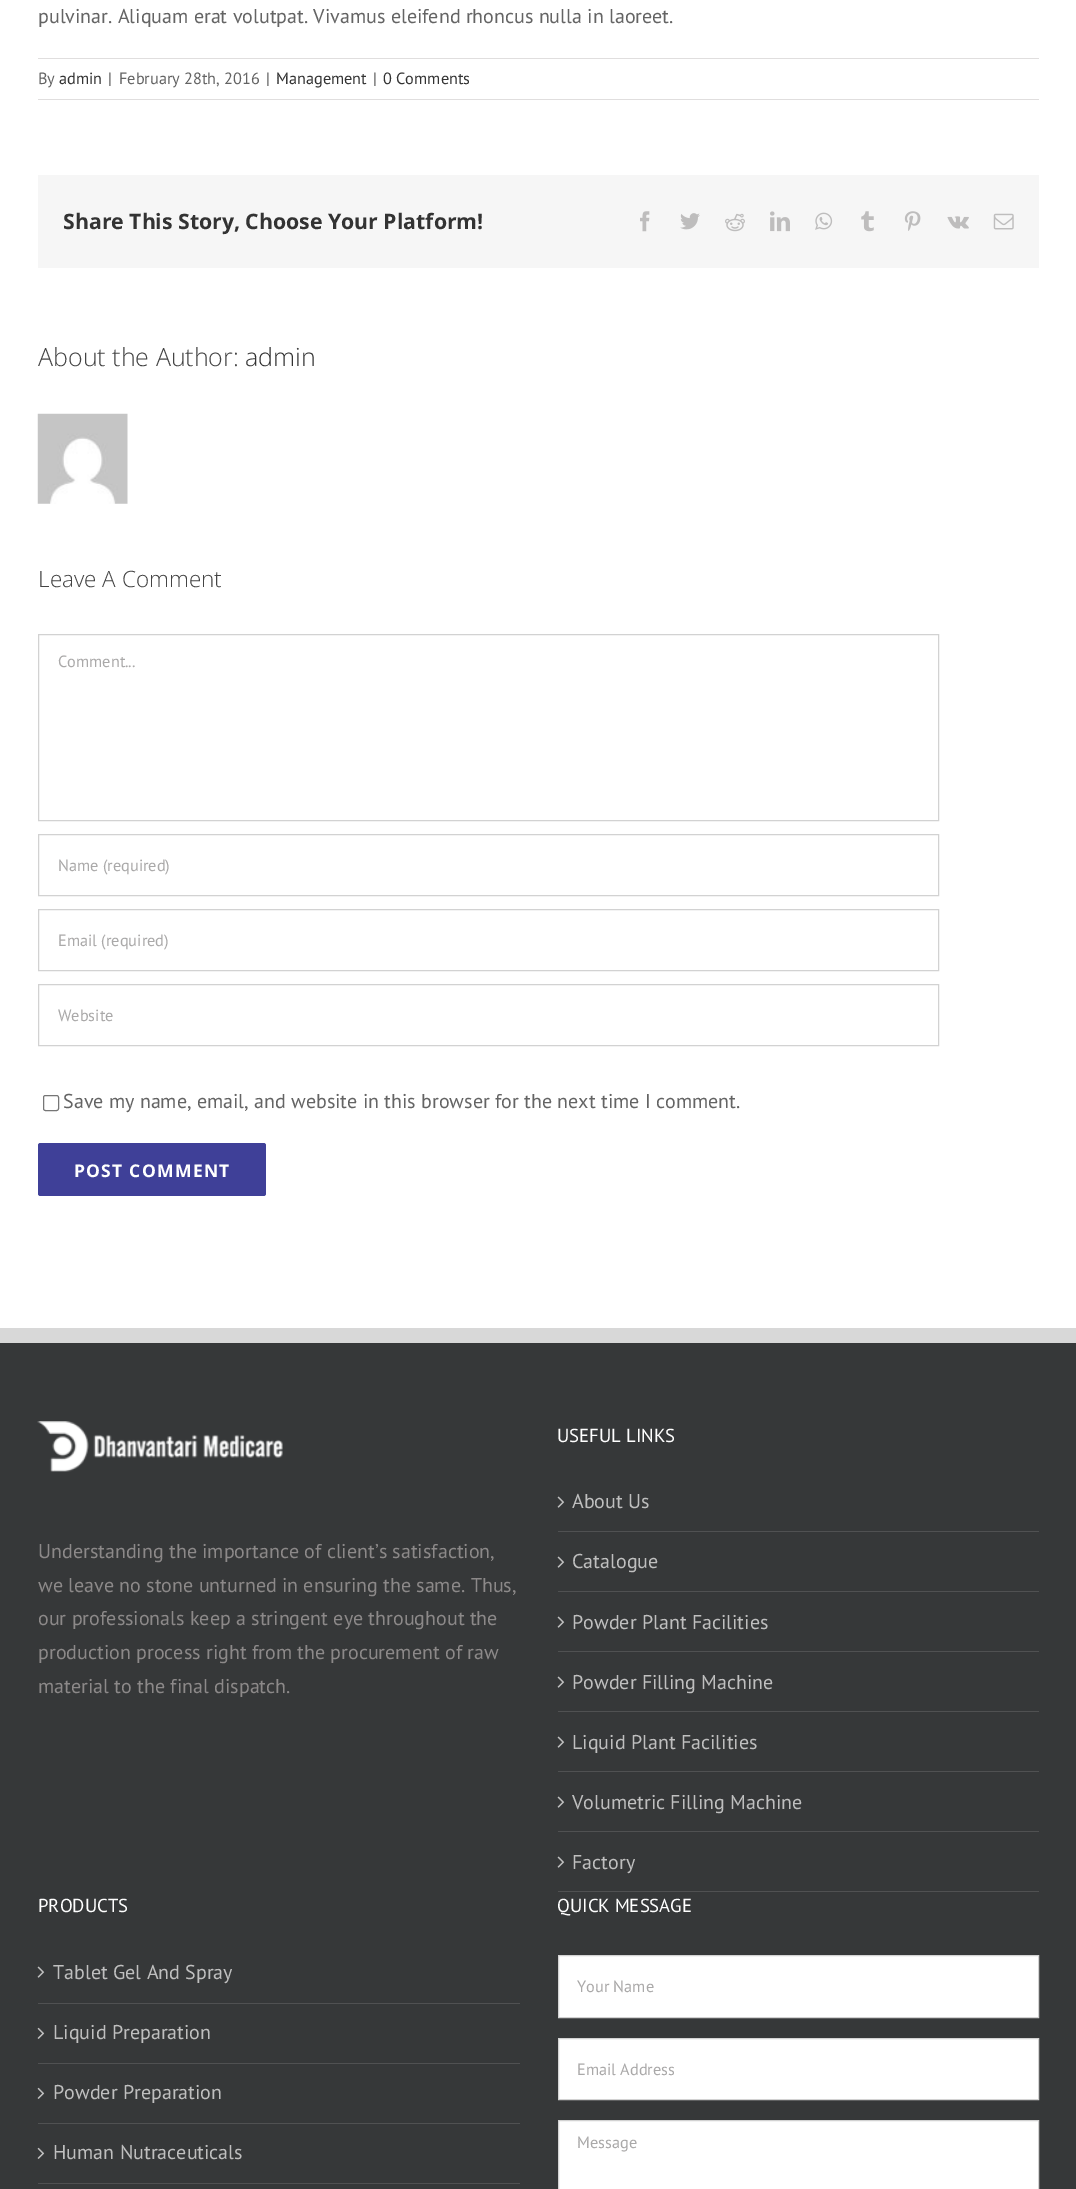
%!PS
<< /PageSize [1076 2189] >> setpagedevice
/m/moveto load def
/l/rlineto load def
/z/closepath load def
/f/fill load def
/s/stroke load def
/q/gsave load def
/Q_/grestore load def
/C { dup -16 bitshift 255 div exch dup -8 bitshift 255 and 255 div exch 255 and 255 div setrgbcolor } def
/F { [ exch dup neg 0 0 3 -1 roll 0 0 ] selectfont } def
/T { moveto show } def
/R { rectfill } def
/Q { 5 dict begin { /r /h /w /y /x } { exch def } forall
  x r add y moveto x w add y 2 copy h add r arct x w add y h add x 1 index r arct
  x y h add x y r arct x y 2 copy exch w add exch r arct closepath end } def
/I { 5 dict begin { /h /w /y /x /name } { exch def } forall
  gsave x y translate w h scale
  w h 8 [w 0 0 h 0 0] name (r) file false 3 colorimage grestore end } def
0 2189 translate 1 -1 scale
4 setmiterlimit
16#FFFFFF C
0 0 1076 2189 R
/PTSans-Regular 20 F
16#646464 C
(pulvinar. Aliquam erat volutpat. Vivamus eleifend rhoncus nulla in laoreet.) 38 23 T
16#E0DEDE C
38 58 1001 1 R
38 99 1001 1 R
/PTSans-Regular 16.25 F
16#646464 C
(By) 38 84 T
16#333333 C
(admin) 59 84 T
16#646464 C
(|) 108 84 T
(February 28th, 2016) 119 84 T
(|) 266 84 T
16#333333 C
(Management) 276 84 T
16#646464 C
(|) 373 84 T
16#333333 C
(0 Comments) 383 84 T
16#F6F6F6 C
38 175 1001 93 R
/OpenSans-Bold 21.25 F
16#333333 C
(Share This Story, Choose Your Platform!) 63 229 T
(1.rgb) 640 211 10 21 I
(2.rgb) 680 213 20 17 I
(3.rgb) 725 213 20 19 I
(4.rgb) 770 211 20 21 I
(5.rgb) 815 212 18 18 I
(6.rgb) 861 211 13 21 I
(7.rgb) 904 211 17 20 I
(8.rgb) 947 216 22 13 I
(9.rgb) 993 213 21 17 I
/OpenSans-Light 25 F
16#444444 C
(About the Author:) 38 366 T
16#333333 C
(admin) 245 366 T
(10.rgb) 37 413 91 91 I
/OpenSans-Light 22.5 F
16#444444 C
(Leave A Comment) 38 587 T
16#D2D2D2 C
38.5 634.5 900 186 rectstroke
/PTSans-Regular 16.25 F
16#AAA9A9 C
(Comment...) 58 667 T
16#D2D2D2 C
38.5 834.5 900 61 rectstroke
16#AAA9A9 C
(Name \(required\)) 58 871 T
16#D2D2D2 C
38.5 909.5 900 61 rectstroke
16#AAA9A9 C
(Email \(required\)) 58 946 T
16#D2D2D2 C
38.5 984.5 900 61 rectstroke
16#AAA9A9 C
(Website) 58 1021 T
16#767676 C
43.5 1095.5 15 15 2 Q s
/PTSans-Regular 20 F
16#646464 C
(Save my name, email, and website in this browser for the next time I comment.) 63 1108 T
16#3F4098 C
38 1143 228 53 2.5 Q f
/OpenSans-Bold 17.5 F
16#FFFFFF C
74 1177 m 1.25 0 (POST COMMENT) ashow
16#363839 C
0 1343 1076 846 R
16#D8D8D8 C
0 1328 1076 15 R
(11.rgb) 37 1421 246 51 I
/PTSans-Regular 20 F
16#8C8989 C
(Understanding the importance of client’s satisfaction,) 38 1558 T
(we leave no stone unturned in ensuring the same. Thus,) 38 1592 T
(our professionals keep a stringent eye throughout the) 38 1625 T
(production process right from the procurement of raw) 38 1659 T
(material to the final dispatch.) 38 1693 T
/PTSans-Regular 18.75 F
16#FFFFFF C
(USEFUL LINKS) 557 1442 T
16#505152 C
558 1531 481 1 R
(12.rgb) 557 1496 8 12 I
/PTSans-Regular 20 F
16#BFBFBF C
(About Us) 572 1508 T
16#505152 C
558 1591 481 1 R
(12.rgb) 557 1556 8 12 I
16#BFBFBF C
(Catalogue) 572 1568 T
16#505152 C
558 1651 481 1 R
(12.rgb) 557 1616 8 12 I
16#BFBFBF C
(Powder Plant Facilities) 572 1629 T
16#505152 C
558 1711 481 1 R
(12.rgb) 557 1676 8 12 I
16#BFBFBF C
(Powder Filling Machine) 572 1689 T
16#505152 C
558 1771 481 1 R
(12.rgb) 557 1736 8 12 I
16#BFBFBF C
(Liquid Plant Facilities) 572 1749 T
16#505152 C
558 1831 481 1 R
(12.rgb) 557 1796 8 12 I
16#BFBFBF C
(Volumetric Filling Machine) 572 1809 T
16#505152 C
558 1891 481 1 R
(12.rgb) 557 1856 8 12 I
16#BFBFBF C
(Factory) 572 1869 T
/PTSans-Regular 18.75 F
16#FFFFFF C
(PRODUCTS) 38 1912 T
16#505152 C
38 2003 482 1 R
(12.rgb) 37 1966 8 12 I
/PTSans-Regular 20 F
16#BFBFBF C
(Tablet Gel And Spray) 53 1979 T
16#505152 C
38 2063 482 1 R
(13.rgb) 37 2027 8 12 I
16#BFBFBF C
(Liquid Preparation) 53 2039 T
16#505152 C
38 2123 482 1 R
(13.rgb) 37 2087 8 12 I
16#BFBFBF C
(Powder Preparation) 53 2099 T
16#505152 C
38 2183 482 1 R
(13.rgb) 37 2147 8 12 I
16#BFBFBF C
(Human Nutraceuticals) 53 2159 T
/PTSans-Regular 18.75 F
16#FFFFFF C
(QUICK MESSAGE) 557 1912 T
558.5 1955.5 m 480 0 l 0 62 l -480 0 l z q f Q_
16#D2D2D2 C
s
/PTSans-Regular 16.25 F
16#AAA9A9 C
(Your Name) 577 1992 T
16#FFFFFF C
558.5 2038.5 m 480 0 l 0 61 l -480 0 l z q f Q_
16#D2D2D2 C
s
16#AAA9A9 C
(Email Address) 577 2075 T
16#FFFFFF C
558.5 2120.5 m 480 0 l 0 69 l -480 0 l z q f Q_
16#D2D2D2 C
s
16#AAA9A9 C
(Message) 577 2148 T
showpage
